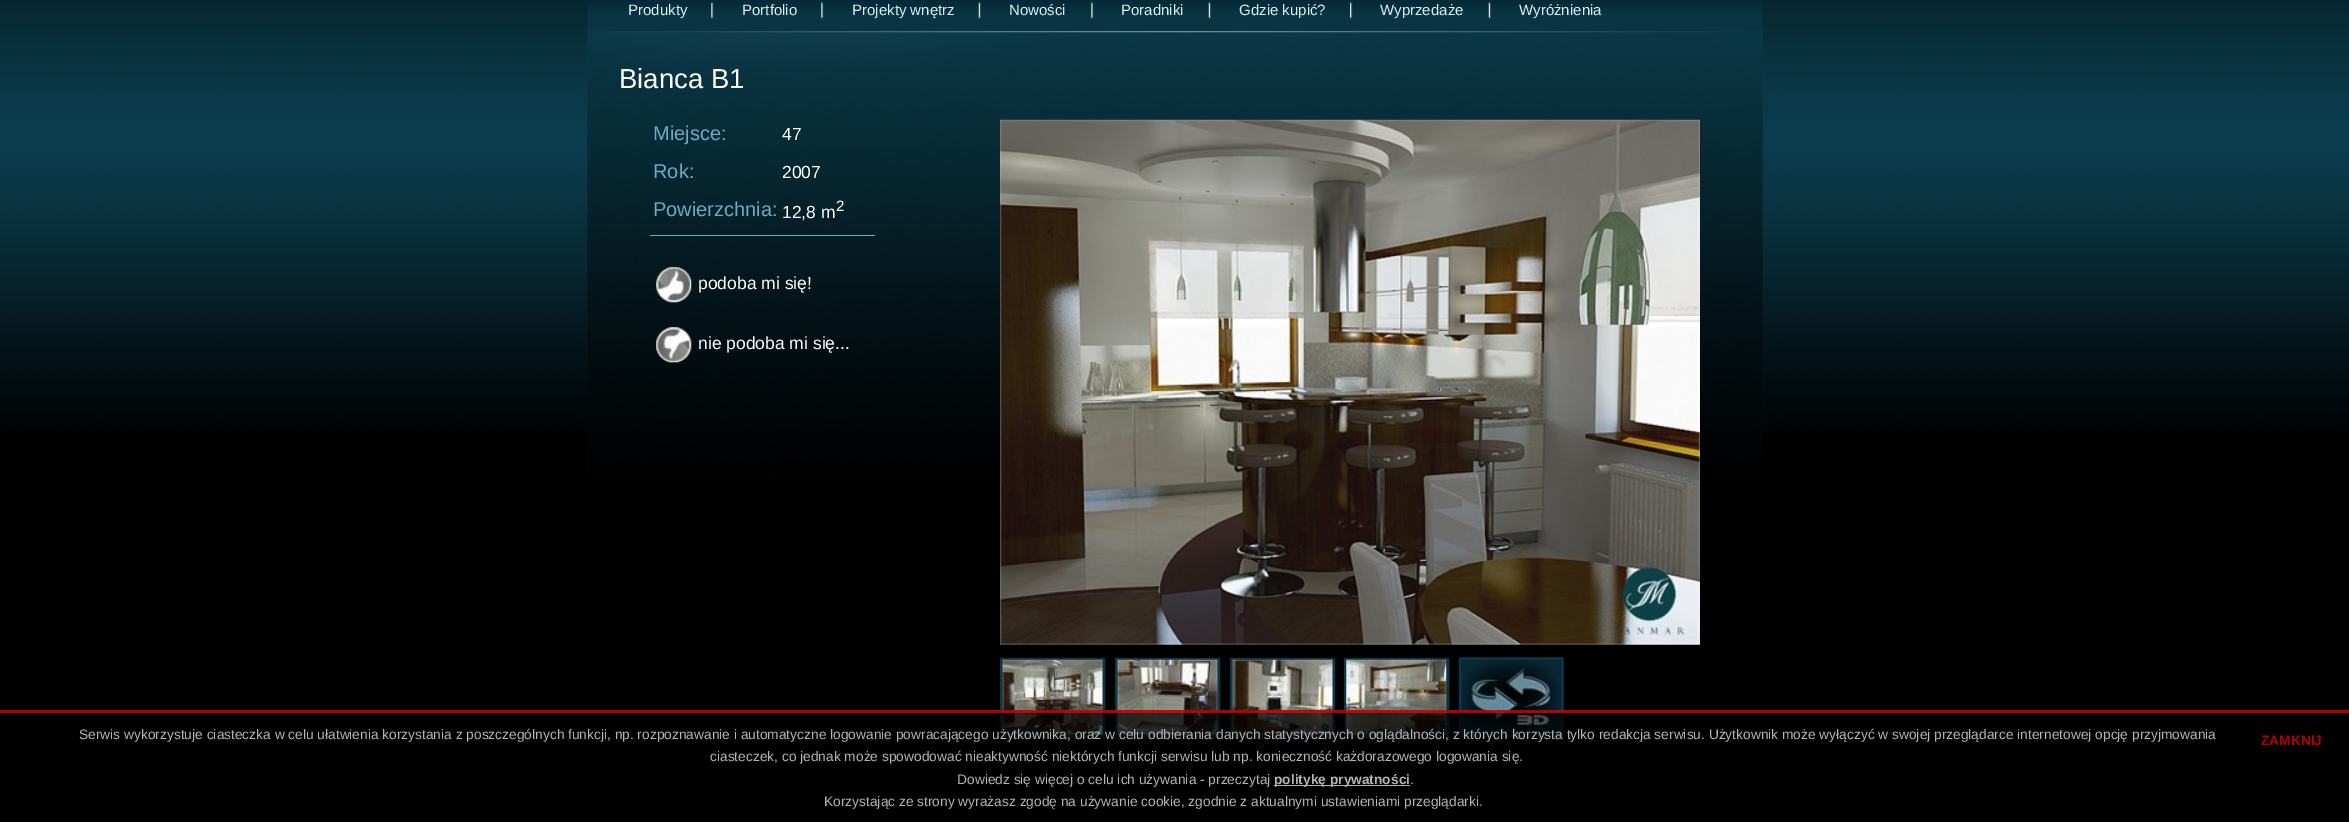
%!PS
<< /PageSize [2349 822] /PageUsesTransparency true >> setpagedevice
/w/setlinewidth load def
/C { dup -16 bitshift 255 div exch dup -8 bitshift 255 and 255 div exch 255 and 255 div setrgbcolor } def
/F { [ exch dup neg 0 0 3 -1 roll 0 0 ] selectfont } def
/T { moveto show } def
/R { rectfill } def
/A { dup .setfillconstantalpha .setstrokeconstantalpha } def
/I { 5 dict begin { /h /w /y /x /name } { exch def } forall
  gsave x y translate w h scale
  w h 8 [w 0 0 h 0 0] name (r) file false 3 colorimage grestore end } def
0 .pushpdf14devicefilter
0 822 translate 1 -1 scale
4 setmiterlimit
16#000000 C
0 0 2349 822 R
(1.rgb) 0 0 2349 433 I
(2.rgb) 587 0 1176 31 I
/LiberationSans-Regular 15 F
16#D9EDF2 C
(Produkty) 628 15 T
(3.rgb) 711 2 3 17 I
(Portfolio) 742 15 T
(3.rgb) 821 2 3 17 I
(Projekty wnętrz) 852 15 T
(4.rgb) 978 2 3 17 I
(Nowości) 1009 15 T
(3.rgb) 1091 2 3 17 I
(Poradniki) 1121 15 T
(4.rgb) 1208 2 3 17 I
(Gdzie kupić?) 1239 15 T
(5.rgb) 1350 2 3 17 I
(Wyprzedaże) 1380 15 T
(4.rgb) 1488 2 3 17 I
(Wyróżnienia) 1519 15 T
(6.rgb) 587 31 1176 489 I
(7.rgb) 587 31 1176 489 I
/LiberationSans-Regular 27.5 F
16#FFFFFF C
(Bianca B1) 619 88 T
16#6AADC3 C
650 235 225 1 R
/LiberationSans-Regular 20 F
(Miejsce:) 653 140 T
/LiberationSans-Regular 17.5 F
16#FFFFFF C
(47) 782 140 T
/LiberationSans-Regular 20 F
16#6AADC3 C
(Rok:) 653 178 T
/LiberationSans-Regular 17.5 F
16#FFFFFF C
(2007) 782 178 T
/LiberationSans-Regular 20 F
16#6AADC3 C
(Powierzchnia:) 653 216 T
/LiberationSans-Regular 17.5 F
16#FFFFFF C
(12,8 m) 782 218 T
/LiberationSans-Regular 15 F
(2) 836 211 T
(8.rgb) 656 267 36 36 I
/LiberationSans-Regular 17.5 F
(podoba mi się!) 698 289 T
(9.rgb) 656 327 36 36 I
(nie podoba mi się...) 698 349 T
(10.rgb) 1000 119 700 526 I
16#0A3848 C
3 w
1001.5 659.5 102 77 rectstroke
1116.5 659.5 102 77 rectstroke
1231.5 659.5 102 77 rectstroke
1345.5 659.5 102 77 rectstroke
(11.rgb) 1458 657 106 81 I
(12.rgb) 1002 659 101 76 I
(13.rgb) 1117 659 101 76 I
(14.rgb) 1232 659 101 76 I
(15.rgb) 1346 659 101 76 I
0.7 A
16#000000 C
1000 710 564 28 R
16#FF0000 C
0 710 2349 3 R
/LiberationSans-Regular 13.75 F
1 A
16#B3B4B4 C
(Serwis wykorzystuje ciasteczka w celu ułatwienia korzystania z poszczególnych funkcji, np. rozpoznawanie i automatyczne logowanie powracającego użytkownika, oraz w celu odbierania danych statystycznych o oglądalności, z których korzysta tylko redakcja serwisu. Użytkownik może wyłączyć w swojej przeglądarce internetowej opcję przyjmowania) 79 739 T
/LiberationSans-Bold 13.75 F
16#B30000 C
(ZAMKNIJ) 2261 745 T
/LiberationSans-Regular 13.75 F
16#B3B4B4 C
(ciasteczek, co jednak może spowodować nieaktywność niektórych funkcji serwisu lub np. konieczność każdorazowego logowania się.) 710 761 T
(Dowiedz się więcej o celu ich używania - przeczytaj) 957 784 T
16#B3B3B3 C
1274 785 136 1 R
/LiberationSans-Bold 13.75 F
16#B3B4B4 C
(politykę prywatności) 1274 784 T
/LiberationSans-Regular 13.75 F
(.) 1410 784 T
(Korzystając ze strony wyrażasz zgodę na używanie cookie, zgodnie z aktualnymi ustawieniami przeglądarki.) 824 806 T
.poppdf14devicefilter showpage
